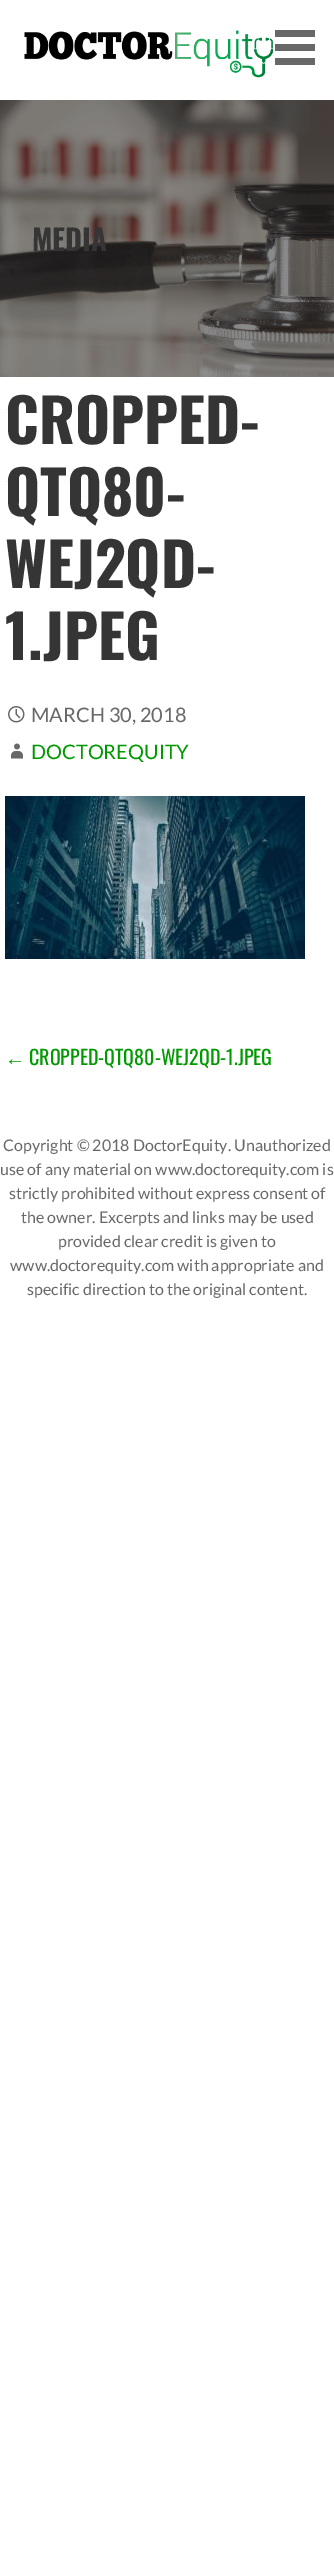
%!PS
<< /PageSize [334 2557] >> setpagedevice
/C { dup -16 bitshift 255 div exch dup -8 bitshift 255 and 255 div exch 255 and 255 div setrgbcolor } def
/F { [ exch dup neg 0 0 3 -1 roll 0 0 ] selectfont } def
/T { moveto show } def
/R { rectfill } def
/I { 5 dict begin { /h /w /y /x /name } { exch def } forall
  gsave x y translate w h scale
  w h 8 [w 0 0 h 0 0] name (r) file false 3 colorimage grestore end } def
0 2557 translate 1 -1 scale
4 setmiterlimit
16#FFFFFF C
0 0 334 2557 R
(1.rgb) 24 30 250 48 I
16#686868 C
275 30 40 7 R
275 44 40 7 R
275 58 40 7 R
(2.rgb) 0 100 334 277 I
/Oswald-Bold 29 F
16#353535 C
(MEDIA) 32 251 T
/Oswald-Bold 60 F
(CROPPED-) 5 444 T
(QTQ80-) 5 516 T
(WEJ2QD-) 5 588 T
(1.JPEG) 5 660 T
(3.rgb) 8 706 17 17 I
/Lato-Regular 20 F
16#686868 C
(MARCH 30, 2018) 31 722 T
(4.rgb) 11 743 12 16 I
16#009900 C
(DOCTOREQUITY) 31 759 T
(5.rgb) 5 796 300 163 I
/LiberationSerif-Regular 20 F
(←) 5 1065 T
/Oswald-Regular 20 F
(CROPPED-QTQ80-WEJ2QD-1.JPEG) 29 1065 T
/Lato-Regular 16 F
16#686868 C
(Copyright © 2018 DoctorEquity. Unauthorized) 3 1151 T
(use of any material on www.doctorequity.com is) 0 1175 T
(strictly prohibited without express consent of) 9 1199 T
(the owner. Excerpts and links may be used) 21 1223 T
(provided clear credit is given to) 58 1247 T
(www.doctorequity.com with appropriate and) 10 1271 T
(specific direction to the original content.) 27 1295 T
showpage
